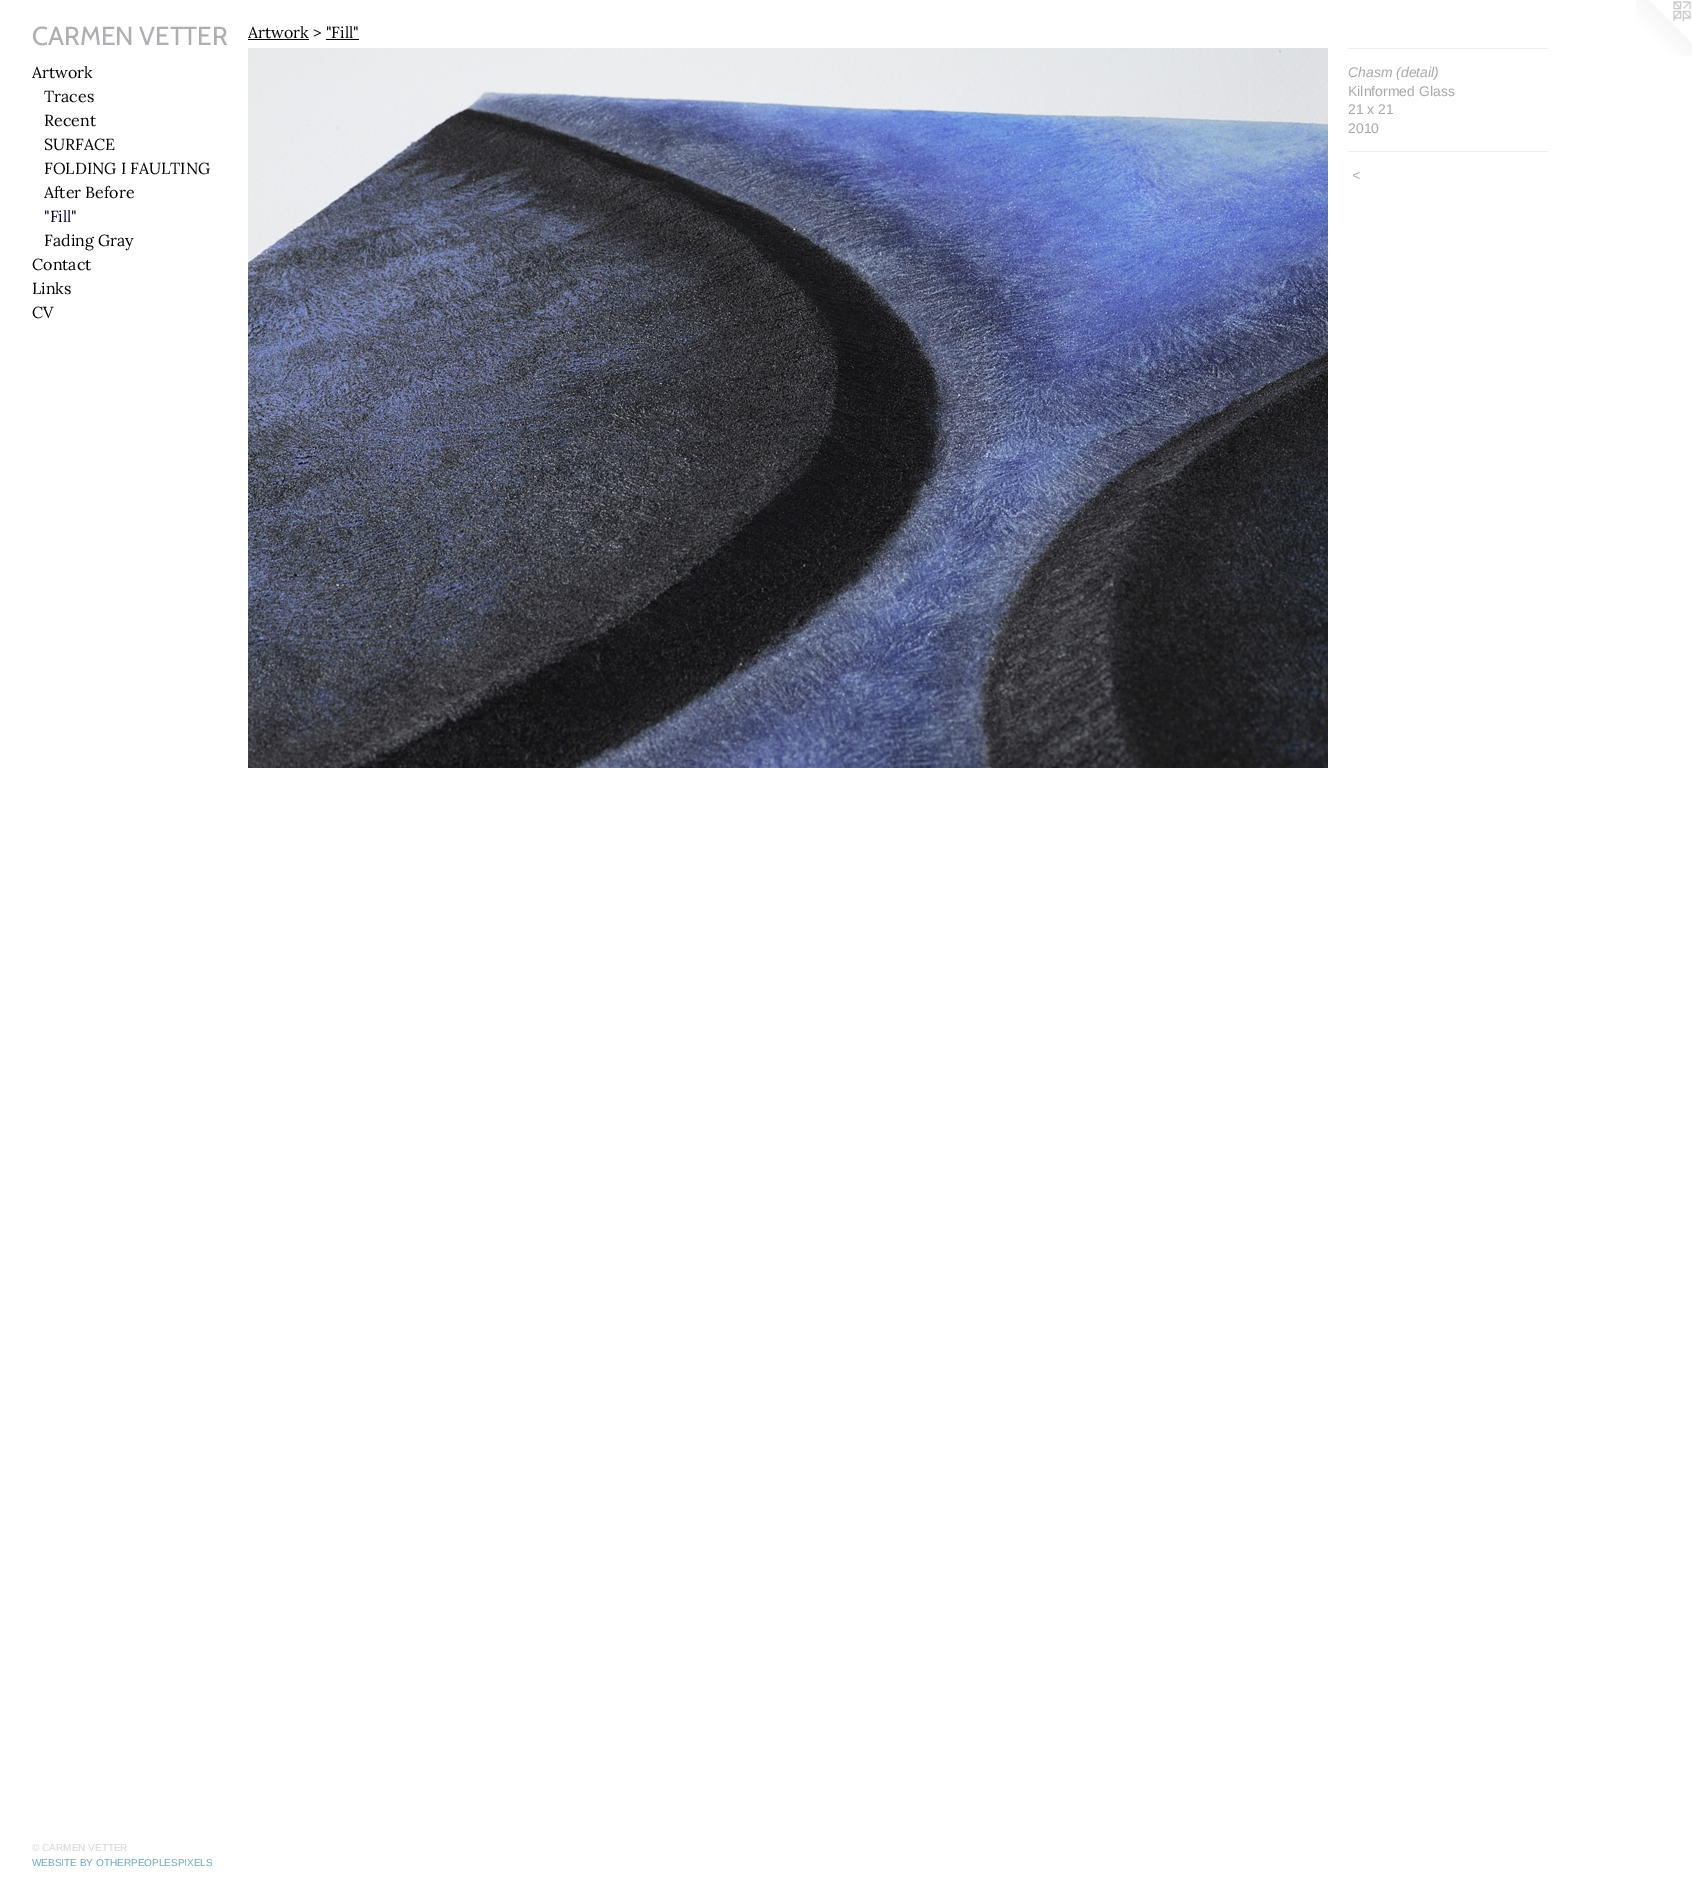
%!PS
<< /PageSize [1692 1893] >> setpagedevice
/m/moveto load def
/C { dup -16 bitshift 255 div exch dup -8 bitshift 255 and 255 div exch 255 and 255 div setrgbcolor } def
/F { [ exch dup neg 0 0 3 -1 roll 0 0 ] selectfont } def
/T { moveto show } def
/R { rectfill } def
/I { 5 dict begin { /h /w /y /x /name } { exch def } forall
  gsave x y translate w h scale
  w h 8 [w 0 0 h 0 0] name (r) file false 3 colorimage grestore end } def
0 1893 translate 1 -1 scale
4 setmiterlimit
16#FFFFFF C
0 0 1692 1893 R
/Cabin-Regular 26 F
16#AFAEB2 C
(CARMEN VETTER) 32 45 T
/Lora-Regular 16 F
16#010005 C
(Artwork) 32 78 T
(Traces) 44 102 T
(Recent) 44 126 T
(SURFACE) 44 150 T
(FOLDING I FAULTING) 44 174 T
(After Before) 44 198 T
16#0B0038 C
("Fill") 44 222 T
16#010005 C
(Fading Gray) 44 246 T
(Contact) 32 270 T
(Links) 32 294 T
(CV) 32 318 T
/LiberationSans-Regular 10 F
16#D6D6D6 C
(© CARMEN VETTER) 32 1851 T
16#70A8C0 C
(WEBSITE BY OTHERPEOPLESPIXELS) 32 1866 T
/Lora-Regular 16 F
16#010005 C
(Artwork > "Fill") 248 38 T
248 39 61 1 R
326 39 33 1 R
(1.rgb) 248 48 1080 720 I
16#EEEEEE C
1348 48 200 1 R
/LiberationSans-Italic 14 F
16#A8A8A8 C
(Chasm \(detail\)) 1348 77 T
/LiberationSans-Regular 14 F
(Kilnformed Glass) 1348 96 T
(21 x 21) 1348 114 T
(2010) 1348 133 T
16#EEEEEE C
1348 151 200 1 R
/LiberationSans-Italic 14 F
16#A8A8A8 C
1352 180 m 1 0 (<) ashow
(2.rgb) 1636 0 56 56 I
showpage
